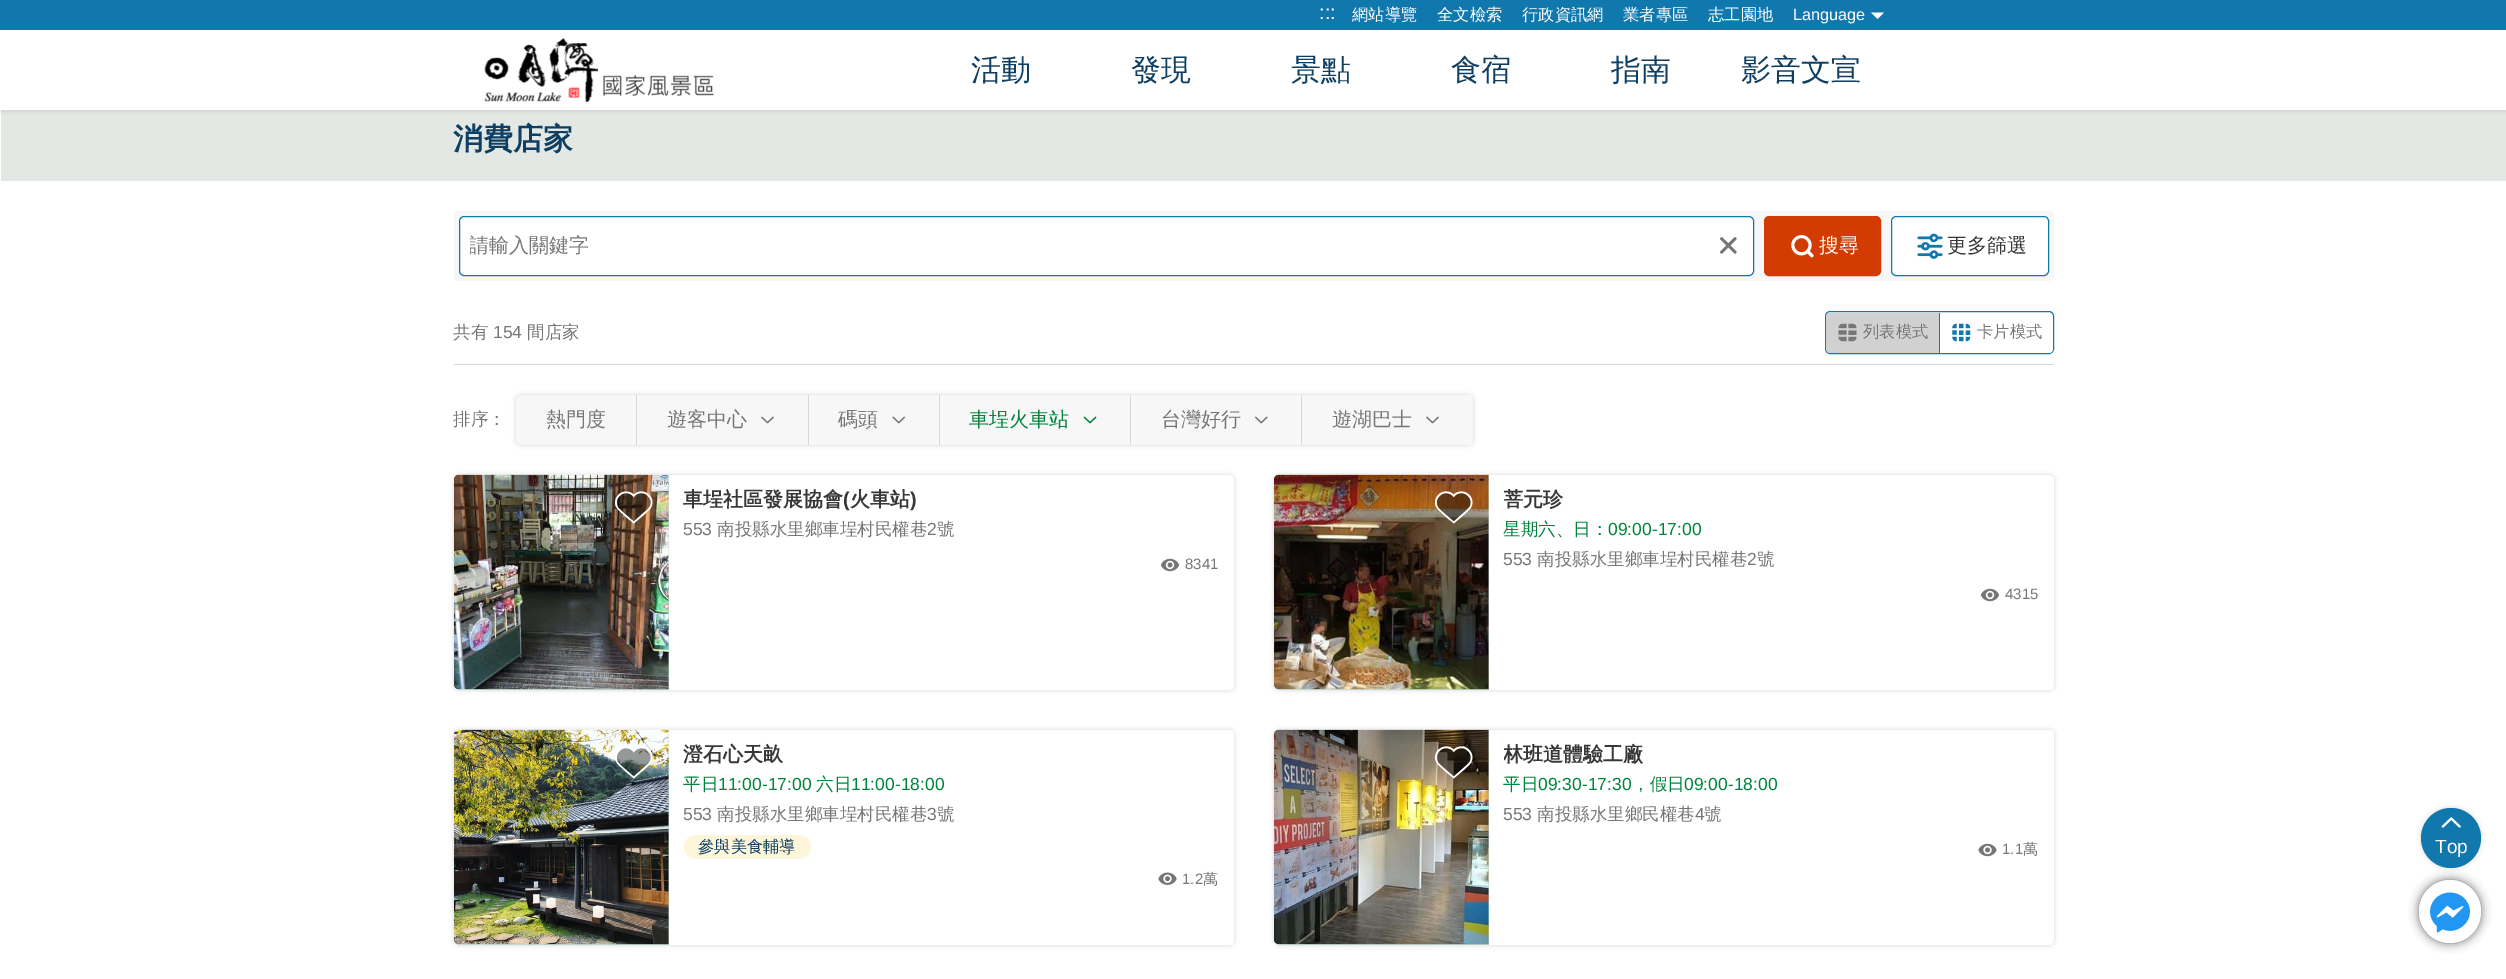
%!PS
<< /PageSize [2506 979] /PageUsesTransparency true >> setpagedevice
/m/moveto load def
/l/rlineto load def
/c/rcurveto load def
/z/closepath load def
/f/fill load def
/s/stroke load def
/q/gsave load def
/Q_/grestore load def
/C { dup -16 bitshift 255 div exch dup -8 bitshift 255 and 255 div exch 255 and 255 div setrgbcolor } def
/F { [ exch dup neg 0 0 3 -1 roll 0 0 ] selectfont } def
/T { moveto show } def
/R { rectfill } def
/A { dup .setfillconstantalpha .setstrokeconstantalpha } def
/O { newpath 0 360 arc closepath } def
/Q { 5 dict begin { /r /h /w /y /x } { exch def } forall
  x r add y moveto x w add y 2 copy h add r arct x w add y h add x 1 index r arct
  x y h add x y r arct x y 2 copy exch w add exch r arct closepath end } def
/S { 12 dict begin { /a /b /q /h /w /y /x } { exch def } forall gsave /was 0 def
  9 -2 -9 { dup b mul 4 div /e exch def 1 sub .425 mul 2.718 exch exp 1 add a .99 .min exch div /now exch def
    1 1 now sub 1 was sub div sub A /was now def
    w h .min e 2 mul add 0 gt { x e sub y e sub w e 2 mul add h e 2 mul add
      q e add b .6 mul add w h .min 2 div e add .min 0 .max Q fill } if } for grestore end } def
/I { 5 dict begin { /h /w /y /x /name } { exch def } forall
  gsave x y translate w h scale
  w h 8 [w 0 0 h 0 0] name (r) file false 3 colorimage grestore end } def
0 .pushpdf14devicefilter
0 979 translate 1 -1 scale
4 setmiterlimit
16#FFFFFF C
0 0 2506 979 R
16#E4E8E5 C
1 110 2505 71 R
16#000000 C
0 0 2506 110 0 2.5 .16 S
16#1178AD C
0 0 2506 30 R
16#FFFFFF C
0 30 2506 80 R
(1.rgb) 484 38 230 65 I
/LiberationSans-Regular 20 F
(:::) 1319 19 T
/WenQuanYiZenHei-Medium 16.25 F
(網站導覽) 1352 20 T
(全文檢索) 1437 20 T
(行政資訊網) 1522 20 T
(業者專區) 1623 20 T
(志工園地) 1708 20 T
/LiberationSans-Regular 16.25 F
(Language) 1793 20 T
1871 12.5 m 13 0 l -6.5 6.5 l z f
/WenQuanYiZenHei-Medium 30 F
16#0E3E62 C
(活動) 971 80 T
(發現) 1131 80 T
(景點) 1291 80 T
(食宿) 1451 80 T
(指南) 1611 80 T
(影音文宣) 1741 80 T
/WenQuanYiZenHei-Bold 30 F
(消費店家) 453 149 T
16#F7F7F7 C
454 211 1600 70 5 Q f
16#FFFFFF C
459.5 216.5 1294 59 4.5 Q q f Q_
16#1178AD C
s
q
470 234 1273 26 rectclip
/WenQuanYiZenHei-Medium 20 F
16#767676 C
(請輸入關鍵字) 469 252 T
Q_
(2.rgb) 1720 237 17 17 I
16#D23C00 C
1764.5 216.5 116 59 4.5 Q q f Q_
s
(3.rgb) 1791 235 23 23 I
/WenQuanYiZenHei-Medium 20 F
16#FFFFFF C
(搜尋) 1819 252 T
1891.5 216.5 157 59 4.5 Q q f Q_
16#1178AD C
s
(4.rgb) 1917 233 26 26 I
16#383838 C
(更多篩選) 1947 252 T
16#D7D7D7 C
454 364 1600 1 R
/WenQuanYiZenHei-Medium 17.5 F
16#767676 C
(共有) 453 338 T
/LiberationSans-Regular 17.5 F
(154) 493 338 T
/WenQuanYiZenHei-Medium 17.5 F
(間店家) 527 338 T
16#1178AD C
1825.5 311.5 228 42 4.5 Q s
16#D1D1D1 C
1830 313 m 110 0 l 0 40 l -110 0 l -2 0 -4 -2 -4 -4 c 0 -32 l 0 -2 2 -4 4 -4 c z f
16#1178AD C
1939 313 1 40 R
(5.rgb) 1838 323 19 19 I
/WenQuanYiZenHei-Medium 16.25 F
16#767676 C
(列表模式) 1863 337 T
16#FFFFFF C
1940 313 m 109 0 l 2 0 4 2 4 4 c 0 32 l 0 2 -2 4 -4 4 c -109 0 l z f
(6.rgb) 1952 323 19 19 I
16#767676 C
(卡片模式) 1977 337 T
/WenQuanYiZenHei-Medium 17.5 F
(排序：) 453 425 T
16#000000 C
516 395 957 50 5 2.5 .16 S
16#F7F7F7 C
516 395 957 50 5 Q f
16#D7D7D7 C
636 395 1 50 R
/WenQuanYiZenHei-Medium 20 F
16#767676 C
(熱門度) 546 426 T
16#D7D7D7 C
808 395 1 50 R
16#767676 C
(遊客中心) 667 426 T
(7.rgb) 761 416 13 8 I
16#D7D7D7 C
939 395 1 50 R
16#767676 C
(碼頭) 838 426 T
(8.rgb) 892 416 14 8 I
16#D7D7D7 C
1130 395 1 50 R
16#00843C C
(車埕火車站) 969 426 T
(9.rgb) 1083 416 14 8 I
16#D7D7D7 C
1301 395 1 50 R
16#767676 C
(台灣好行) 1161 426 T
(10.rgb) 1254 416 14 8 I
(遊湖巴士) 1332 426 T
(7.rgb) 1426 416 13 8 I
16#000000 C
454 475 780 215 5 2.5 .16 S
16#FFFFFF C
454 475 780 215 5 Q f
q 459 475 m 210 0 l 0 215 l -210 0 l -3 0 -5 -2 -5 -5 c 0 -205 l 0 -3 2 -5 5 -5 c z clip newpath
<< /ShadingType 2 /ColorSpace /DeviceRGB /Coords [454 475 669 690] /Extend [true true] /Function << /FunctionType 2 /Domain [0 1] /C0 [.871 .953 .929] /C1 [.718 .824 .761] /N 1 >> >> shfill Q_
(13.rgb) 454 474 215 216 I
(12.rgb) 616 493 35 29 I
(11.rgb) 615 491 38 33 I
/WenQuanYiZenHei-Bold 20 F
16#383838 C
(車埕社區發展協會) 683 506 T
/LiberationSans-Bold 20 F
(\() 843 506 T
/WenQuanYiZenHei-Bold 20 F
(火車站) 850 506 T
/LiberationSans-Bold 20 F
(\)) 910 506 T
/LiberationSans-Regular 17.5 F
16#767676 C
(553) 683 535 T
/WenQuanYiZenHei-Medium 17.5 F
(南投縣水里鄉車埕村民權巷) 717 535 T
/LiberationSans-Regular 17.5 F
(2) 927 535 T
/WenQuanYiZenHei-Medium 17.5 F
(號) 937 535 T
(14.rgb) 1160 558 20 14 I
/LiberationSans-Regular 15 F
(8341) 1185 569 T
16#000000 C
1274 475 780 215 5 2.5 .16 S
16#FFFFFF C
1274 475 780 215 5 Q f
q 1279 475 m 210 0 l 0 215 l -210 0 l -3 0 -5 -2 -5 -5 c 0 -205 l 0 -3 2 -5 5 -5 c z clip newpath
<< /ShadingType 2 /ColorSpace /DeviceRGB /Coords [1274 475 1489 690] /Extend [true true] /Function << /FunctionType 2 /Domain [0 1] /C0 [.871 .953 .929] /C1 [.718 .824 .761] /N 1 >> >> shfill Q_
(17.rgb) 1274 474 215 216 I
(16.rgb) 1436 493 35 29 I
(15.rgb) 1435 491 38 33 I
q
1504 485 535 30 rectclip
/WenQuanYiZenHei-Bold 20 F
16#383838 C
(菩元珍) 1503 506 T
Q_
/WenQuanYiZenHei-Medium 17.5 F
16#00843C C
(星期六、日：) 1503 535 T
/LiberationSans-Regular 17.5 F
(09:00-17:00) 1608 535 T
16#767676 C
(553) 1503 565 T
/WenQuanYiZenHei-Medium 17.5 F
(南投縣水里鄉車埕村民權巷) 1537 565 T
/LiberationSans-Regular 17.5 F
(2) 1747 565 T
/WenQuanYiZenHei-Medium 17.5 F
(號) 1757 565 T
(14.rgb) 1980 588 20 14 I
/LiberationSans-Regular 15 F
(4315) 2005 599 T
16#000000 C
454 730 780 215 5 2.5 .16 S
16#FFFFFF C
454 730 780 215 5 Q f
q 459 730 m 210 0 l 0 215 l -210 0 l -3 0 -5 -2 -5 -5 c 0 -205 l 0 -3 2 -5 5 -5 c z clip newpath
<< /ShadingType 2 /ColorSpace /DeviceRGB /Coords [454 730 669 945] /Extend [true true] /Function << /FunctionType 2 /Domain [0 1] /C0 [.871 .953 .929] /C1 [.718 .824 .761] /N 1 >> >> shfill Q_
(20.rgb) 454 729 215 216 I
(19.rgb) 616 748 35 29 I
(18.rgb) 615 746 38 33 I
/WenQuanYiZenHei-Bold 20 F
16#383838 C
(澄石心天畝) 683 761 T
/WenQuanYiZenHei-Medium 17.5 F
16#00843C C
(平日) 683 790 T
/LiberationSans-Regular 17.5 F
(11:00-17:00) 718 790 T
/WenQuanYiZenHei-Medium 17.5 F
(六日) 816 790 T
/LiberationSans-Regular 17.5 F
(11:00-18:00) 851 790 T
16#767676 C
(553) 683 820 T
/WenQuanYiZenHei-Medium 17.5 F
(南投縣水里鄉車埕村民權巷) 717 820 T
/LiberationSans-Regular 17.5 F
(3) 927 820 T
/WenQuanYiZenHei-Medium 17.5 F
(號) 937 820 T
16#FEF6DB C
684 835 127 24 12 Q f
/WenQuanYiZenHei-Medium 16.25 F
16#0E3E62 C
(參與美食輔導) 698 852 T
(21.rgb) 1158 872 19 13 I
/LiberationSans-Regular 15 F
16#767676 C
(1.2) 1182 884 T
/WenQuanYiZenHei-Medium 15 F
(萬) 1203 884 T
16#000000 C
1274 730 780 215 5 2.5 .16 S
16#FFFFFF C
1274 730 780 215 5 Q f
q 1279 730 m 210 0 l 0 215 l -210 0 l -3 0 -5 -2 -5 -5 c 0 -205 l 0 -3 2 -5 5 -5 c z clip newpath
<< /ShadingType 2 /ColorSpace /DeviceRGB /Coords [1274 730 1489 945] /Extend [true true] /Function << /FunctionType 2 /Domain [0 1] /C0 [.871 .953 .929] /C1 [.718 .824 .761] /N 1 >> >> shfill Q_
(24.rgb) 1274 729 215 216 I
(23.rgb) 1436 748 35 29 I
(22.rgb) 1435 746 38 33 I
q
1504 740 535 30 rectclip
/WenQuanYiZenHei-Bold 20 F
16#383838 C
(林班道體驗工廠) 1503 761 T
Q_
/WenQuanYiZenHei-Medium 17.5 F
16#00843C C
(平日) 1503 790 T
/LiberationSans-Regular 17.5 F
(09:30-17:30) 1538 790 T
/WenQuanYiZenHei-Medium 17.5 F
(，假日) 1632 790 T
/LiberationSans-Regular 17.5 F
(09:00-18:00) 1684 790 T
16#767676 C
(553) 1503 820 T
/WenQuanYiZenHei-Medium 17.5 F
(南投縣水里鄉民權巷) 1537 820 T
/LiberationSans-Regular 17.5 F
(4) 1695 820 T
/WenQuanYiZenHei-Medium 17.5 F
(號) 1704 820 T
(25.rgb) 1978 843 19 14 I
/LiberationSans-Regular 15 F
(1.1) 2002 854 T
/WenQuanYiZenHei-Medium 15 F
(萬) 2023 854 T
16#000000 C
2421 808 60 60 30 2.5 .16 S
16#1178AD C
2451 838 30 O f
(26.rgb) 2441 817 20 11 I
/LiberationSans-Regular 19 F
16#FFFFFF C
(Top) 2435 853 T
16#000000 C
2419 880 62 63 31 5 .6 S
16#FFFFFF C
2419 880 62 63 31 Q f
(27.rgb) 2430 892 40 41 I
.poppdf14devicefilter showpage
